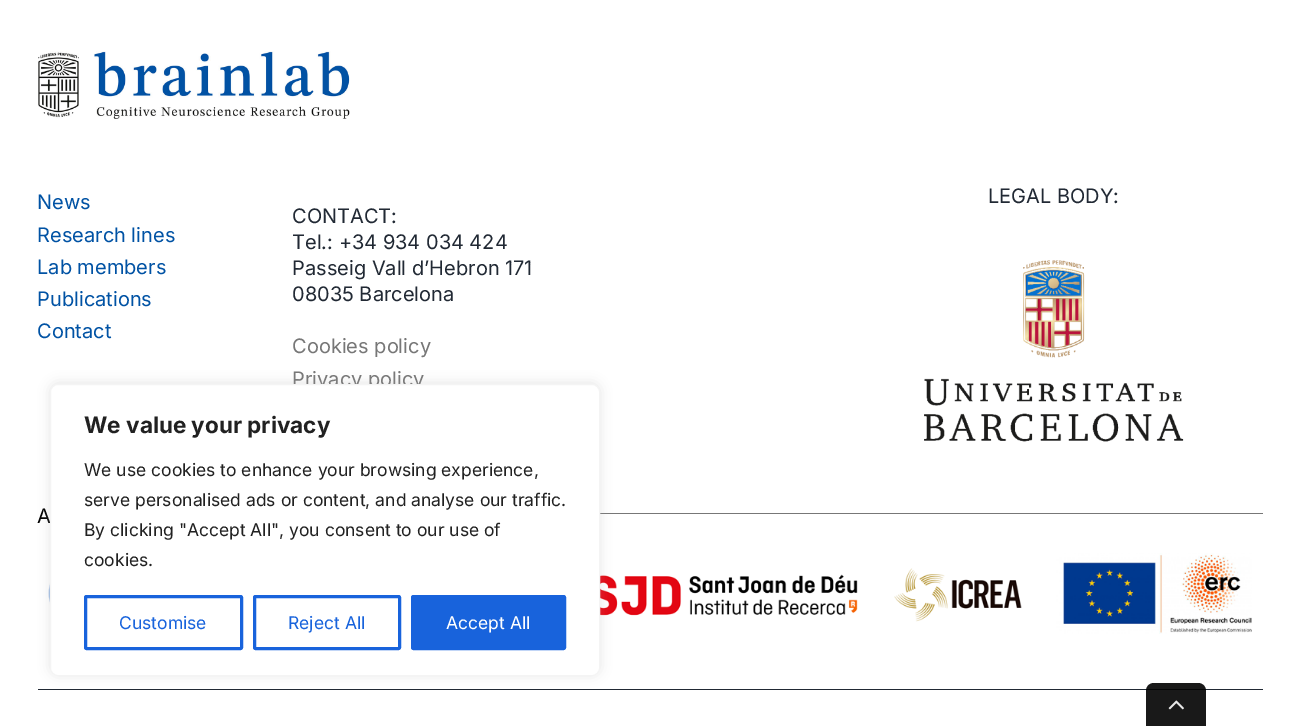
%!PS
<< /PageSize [1300 726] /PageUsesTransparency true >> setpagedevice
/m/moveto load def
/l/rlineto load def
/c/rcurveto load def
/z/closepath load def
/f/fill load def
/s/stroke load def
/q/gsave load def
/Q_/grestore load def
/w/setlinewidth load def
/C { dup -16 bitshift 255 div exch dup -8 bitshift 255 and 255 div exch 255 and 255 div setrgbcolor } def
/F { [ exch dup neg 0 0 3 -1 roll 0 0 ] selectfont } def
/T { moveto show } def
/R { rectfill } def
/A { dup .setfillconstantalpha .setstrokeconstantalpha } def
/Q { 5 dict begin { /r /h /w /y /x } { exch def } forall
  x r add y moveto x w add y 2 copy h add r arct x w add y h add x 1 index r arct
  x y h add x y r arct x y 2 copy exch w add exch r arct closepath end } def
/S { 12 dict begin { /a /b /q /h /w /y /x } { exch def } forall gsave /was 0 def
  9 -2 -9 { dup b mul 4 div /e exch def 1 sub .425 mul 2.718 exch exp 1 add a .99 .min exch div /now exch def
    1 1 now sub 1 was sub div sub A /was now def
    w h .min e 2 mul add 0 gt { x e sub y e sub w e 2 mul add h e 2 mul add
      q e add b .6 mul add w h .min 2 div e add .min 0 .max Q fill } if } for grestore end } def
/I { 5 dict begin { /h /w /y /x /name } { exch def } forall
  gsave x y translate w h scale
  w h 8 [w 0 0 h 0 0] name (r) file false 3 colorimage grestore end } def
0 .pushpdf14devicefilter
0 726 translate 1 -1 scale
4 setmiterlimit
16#FFFFFF C
0 0 1300 726 R
(1.rgb) 38 51 312 68 I
/Inter-Regular 20 F
16#0052A4 C
(News) 37 209 T
(Research lines) 37 242 T
(Lab members) 37 274 T
(Publications) 37 306 T
(Contact) 37 338 T
16#212934 C
(CONTACT:) 292 223 T
(Tel.: +34 934 034 424) 292 249 T
(Passeig Vall d’Hebron 171) 292 275 T
(08035 Barcelona) 292 301 T
16#777777 C
(Cookies policy) 292 353 T
(Privacy policy) 292 386 T
16#212934 C
(LEGAL BODY:) 988 203 T
(2.rgb) 924 260 260 182 I
16#000000 C
(A) 37 523 T
16#777777 C
600 513 663 1 R
(3.rgb) 48 553 1204 81 I
16#212934 C
38 689 1225 1 R
16#ACABAB C
50 383 550 292 8 6 .3 S
16#FFFFFF C
50.5 384.5 549 291 7.5 Q q f Q_
16#F4F4F4 C
s
/Inter-Bold 22.5 F
16#212121 C
(We value your privacy) 84 433 T
/Inter-Regular 17.5 F
(We use cookies to enhance your browsing experience,) 84 476 T
(serve personalised ads or content, and analyse our traffic.) 84 506 T
(By clicking "Accept All", you consent to our use of) 84 536 T
(cookies.) 84 566 T
16#1863DC C
3 w
85.5 596.5 156 52 1 Q s
(Customise) 119 629 T
254.5 596.5 145 52 1 Q s
(Reject All) 288 629 T
412.5 596.5 152 52 1 Q q f Q_
s
16#FFFFFF C
(Accept All) 446 629 T
0.9 A
16#000000 C
1154 683 m 44 0 l 4.5 0 8 3.5 8 8 c 0 35 l -60 0 l 0 -35 l 0 -4.5 3.5 -8 8 -8 c z f
1 A
(4.rgb) 1168 700 16 10 I
.poppdf14devicefilter showpage
